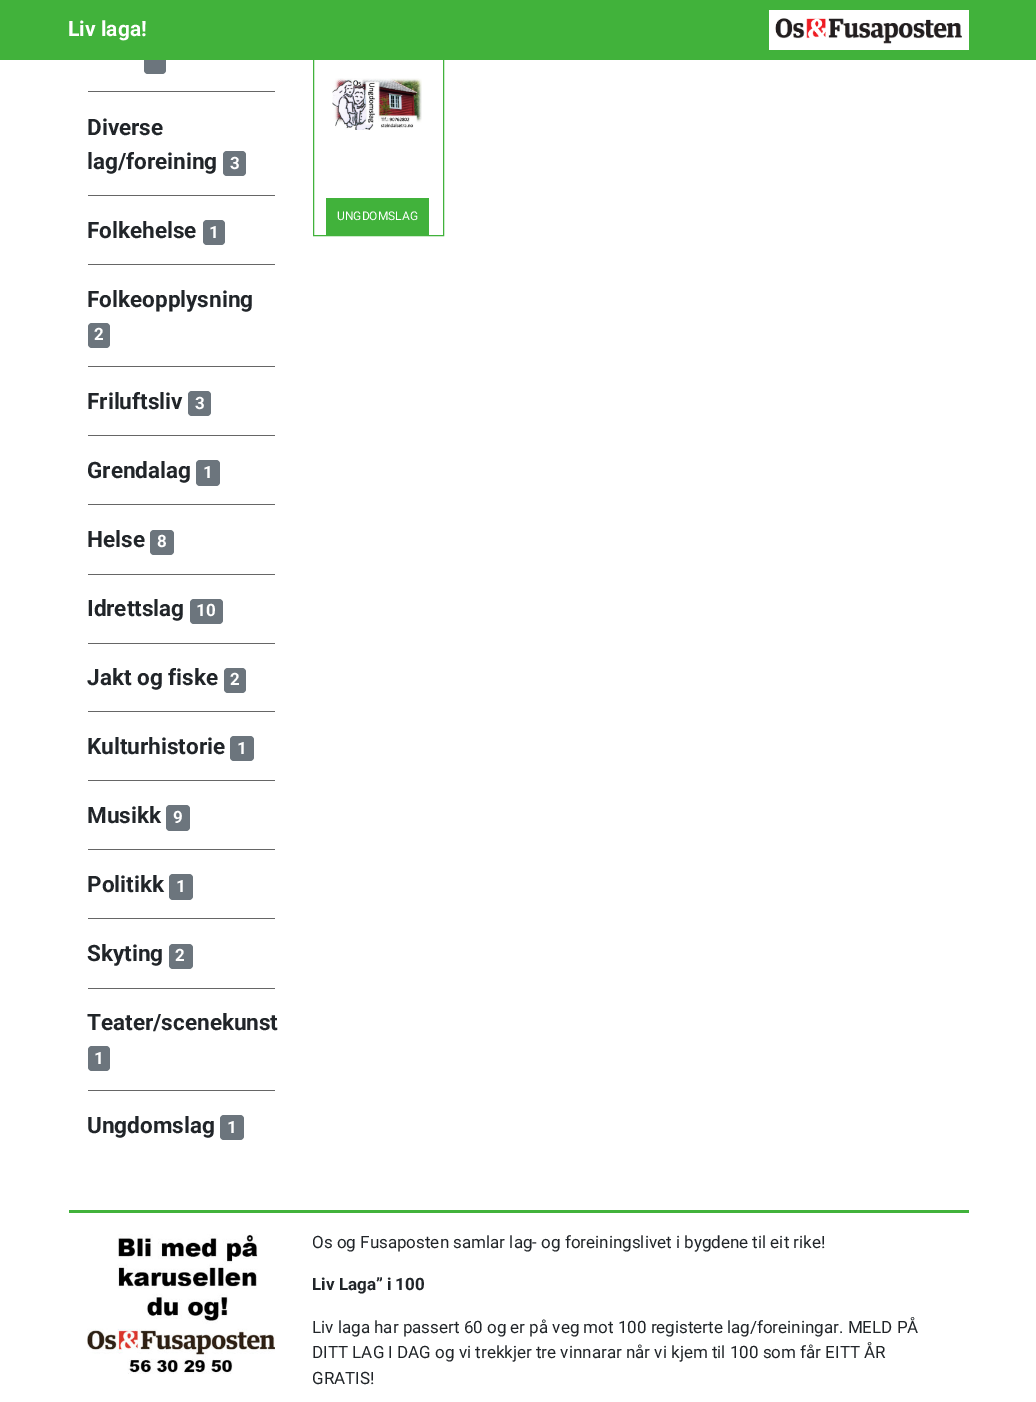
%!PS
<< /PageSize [1036 1402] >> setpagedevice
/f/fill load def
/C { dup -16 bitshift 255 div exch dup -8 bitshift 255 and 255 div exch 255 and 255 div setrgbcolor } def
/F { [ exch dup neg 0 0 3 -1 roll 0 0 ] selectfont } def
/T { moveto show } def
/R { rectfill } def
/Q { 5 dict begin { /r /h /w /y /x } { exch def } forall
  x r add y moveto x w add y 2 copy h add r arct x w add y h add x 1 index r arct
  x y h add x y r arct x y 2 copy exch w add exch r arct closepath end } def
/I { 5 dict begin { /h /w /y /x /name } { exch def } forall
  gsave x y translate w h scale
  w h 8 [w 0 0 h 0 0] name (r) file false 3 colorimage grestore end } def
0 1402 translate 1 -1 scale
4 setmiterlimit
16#FFFFFF C
0 0 1036 1402 R
16#6C757D C
144 48 22 26 4 Q f
16#41B23B C
313.5 -.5 130 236 rectstroke
0 0 1036 60 R
/Roboto-Bold 21 F
16#FFFFFF C
(Liv laga!) 68 36 T
769 10 200 40 R
(1.rgb) 775 18 187 26 I
16#666666 C
88 91 187 1 R
88 195 187 1 R
/Roboto-Bold 22.5 F
16#212529 C
(Diverse) 87 135 T
(lag/foreining) 87 169 T
16#6C757D C
223 151 23 25 4 Q f
/Roboto-Bold 17 F
16#FFFFFF C
(3) 230 169 T
16#666666 C
88 264 187 1 R
/Roboto-Bold 22.5 F
16#212529 C
(Folkehelse) 87 238 T
16#6C757D C
203 220 22 25 4 Q f
/Roboto-Bold 17 F
16#FFFFFF C
(1) 209 238 T
16#666666 C
88 366 187 1 R
/Roboto-Bold 22.5 F
16#212529 C
(Folkeopplysning) 87 307 T
16#6C757D C
88 323 22 25 4 Q f
/Roboto-Bold 17 F
16#FFFFFF C
(2) 94 340 T
16#666666 C
88 435 187 1 R
/Roboto-Bold 22.5 F
16#212529 C
(Friluftsliv) 87 409 T
16#6C757D C
188 391 23 25 4 Q f
/Roboto-Bold 17 F
16#FFFFFF C
(3) 195 409 T
16#666666 C
88 504 187 1 R
/Roboto-Bold 22.5 F
16#212529 C
(Grendalag) 87 478 T
16#6C757D C
196 460 24 26 4 Q f
/Roboto-Bold 17 F
16#FFFFFF C
(1) 203 478 T
16#666666 C
88 574 187 1 R
/Roboto-Bold 22.5 F
16#212529 C
(Helse) 87 547 T
16#6C757D C
150 530 24 25 4 Q f
/Roboto-Bold 17 F
16#FFFFFF C
(8) 157 547 T
16#666666 C
88 643 187 1 R
/Roboto-Bold 22.5 F
16#212529 C
(Idrettslag) 87 616 T
16#6C757D C
190 599 33 25 4 Q f
/Roboto-Bold 17 F
16#FFFFFF C
(10) 196 616 T
16#666666 C
88 711 187 1 R
/Roboto-Bold 22.5 F
16#212529 C
(Jakt og fiske) 87 685 T
16#6C757D C
224 668 22 25 4 Q f
/Roboto-Bold 17 F
16#FFFFFF C
(2) 230 685 T
16#666666 C
88 780 187 1 R
/Roboto-Bold 22.5 F
16#212529 C
(Kulturhistorie) 87 754 T
16#6C757D C
230 736 24 25 4 Q f
/Roboto-Bold 17 F
16#FFFFFF C
(1) 237 754 T
16#666666 C
88 849 187 1 R
/Roboto-Bold 22.5 F
16#212529 C
(Musikk) 87 823 T
16#6C757D C
166 805 24 26 4 Q f
/Roboto-Bold 17 F
16#FFFFFF C
(9) 173 823 T
16#666666 C
88 918 187 1 R
/Roboto-Bold 22.5 F
16#212529 C
(Politikk) 87 892 T
16#6C757D C
169 874 24 26 4 Q f
/Roboto-Bold 17 F
16#FFFFFF C
(1) 176 892 T
16#666666 C
88 988 187 1 R
/Roboto-Bold 22.5 F
16#212529 C
(Skyting) 87 961 T
16#6C757D C
169 944 24 25 4 Q f
/Roboto-Bold 17 F
16#FFFFFF C
(2) 175 961 T
16#666666 C
88 1090 187 1 R
/Roboto-Bold 22.5 F
16#212529 C
(Teater/scenekunst) 87 1030 T
16#6C757D C
88 1046 22 25 4 Q f
/Roboto-Bold 17 F
16#FFFFFF C
(1) 94 1064 T
/Roboto-Bold 22.5 F
16#212529 C
(Ungdomslag) 87 1133 T
16#6C757D C
220 1115 24 25 4 Q f
/Roboto-Bold 17 F
16#FFFFFF C
(1) 227 1133 T
(2.rgb) 332 78 90 52 I
16#41B23B C
326 198 103 37 R
/Roboto-Regular 12 F
16#FFFFFF C
(UNGDOMSLAG) 337 220 T
16#41B23B C
69 1210 900 3 R
(3.rgb) 87 1234 188 140 I
/Roboto-Regular 17 F
16#212529 C
(Os og Fusaposten samlar lag- og foreiningslivet i bygdene til eit rike!) 312 1248 T
/Roboto-Bold 17 F
(Liv Laga” i 100) 312 1290 T
/Roboto-Regular 17 F
(Liv laga har passert 60 og er på veg mot 100 registerte lag/foreiningar. MELD PÅ) 312 1333 T
(DITT LAG I DAG og vi trekkjer tre vinnarar når vi kjem til 100 som får EITT ÅR) 312 1358 T
(GRATIS!) 312 1384 T
showpage
